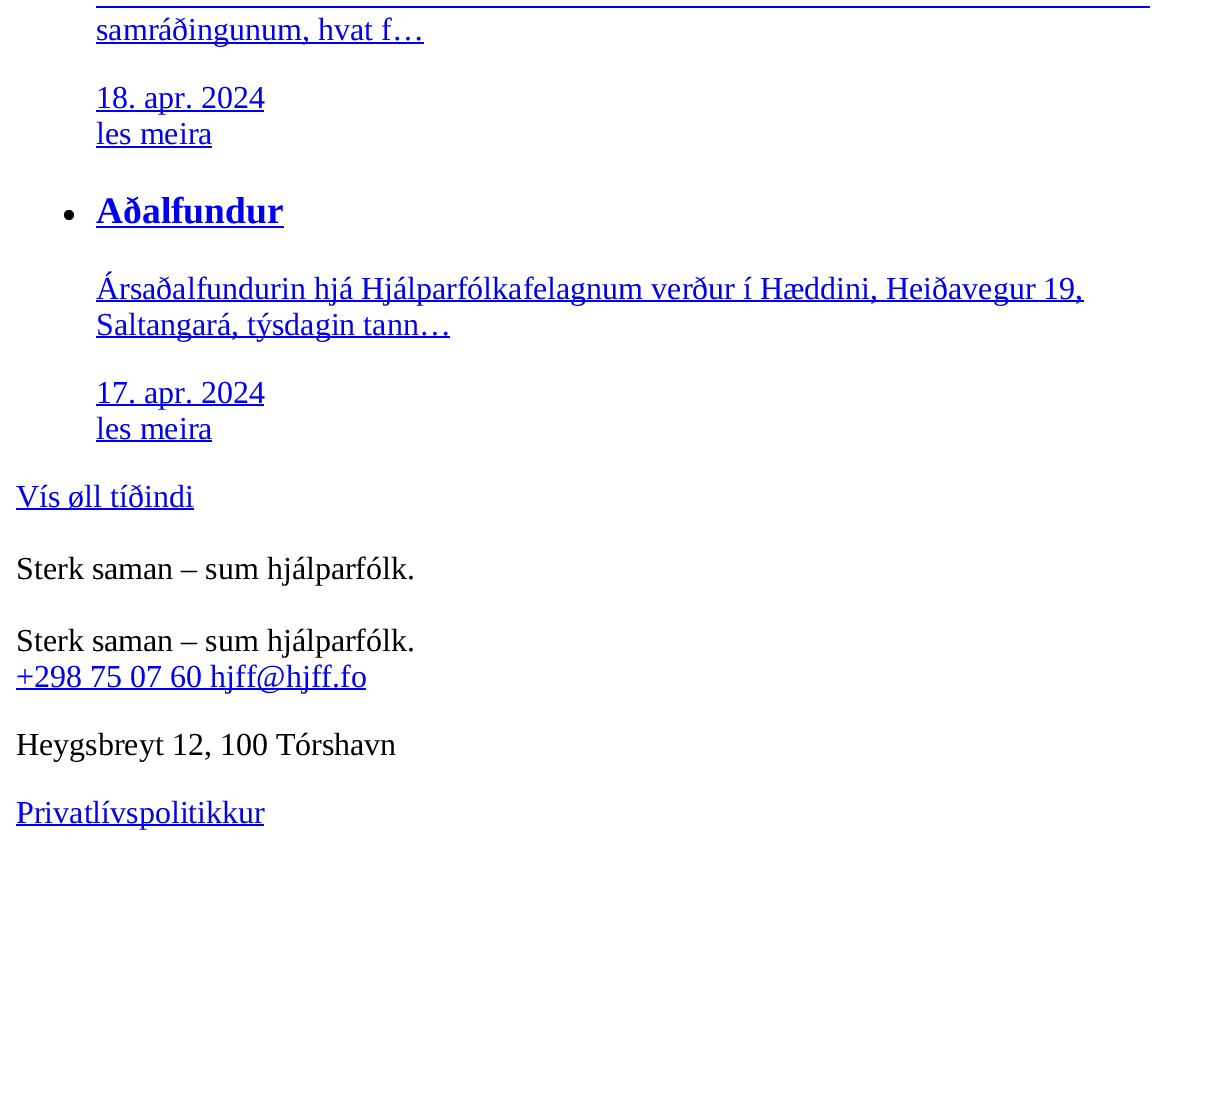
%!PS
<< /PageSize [1230 1103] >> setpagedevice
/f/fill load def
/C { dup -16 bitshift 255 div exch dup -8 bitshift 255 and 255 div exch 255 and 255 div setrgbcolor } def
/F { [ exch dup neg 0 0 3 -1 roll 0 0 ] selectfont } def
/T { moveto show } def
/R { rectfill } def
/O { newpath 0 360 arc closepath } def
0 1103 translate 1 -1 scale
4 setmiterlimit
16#FFFFFF C
0 0 1230 1103 R
16#0000EE C
96 42 328 2 R
/LiberationSerif-Regular 32 F
(samráðingunum, hvat f…) 96 40 T
96 6 1054 2 R
96 110 168 2 R
(18. apr. 2024) 96 108 T
(les meira) 96 144 T
96 146 116 2 R
16#000000 C
69 215 5 O f
/LiberationSerif-Bold 37.5 F
16#0000EE C
(Aðalfundur) 96 223 T
96 226 188 2 R
96 300 988 2 R
/LiberationSerif-Regular 32 F
(Ársaðalfundurin hjá Hjálparfólkafelagnum verður í Hæddini, Heiðavegur 19,) 96 299 T
96 336 354 2 R
(Saltangará, týsdagin tann…) 96 335 T
96 404 168 2 R
(17. apr. 2024) 96 403 T
(les meira) 96 439 T
96 440 116 2 R
16 508 178 2 R
(Vís øll tíðindi) 16 507 T
16#000000 C
(Sterk saman – sum hjálparfólk.) 16 579 T
(Sterk saman – sum hjálparfólk.) 16 651 T
16#0000EE C
16 688 350 2 R
(+298 75 07 60 hjff@hjff.fo) 16 687 T
16#000000 C
(Heygsbreyt 12, 100 Tórshavn) 16 755 T
16#0000EE C
16 824 248 2 R
(Privatlívspolitikkur) 16 823 T
showpage
